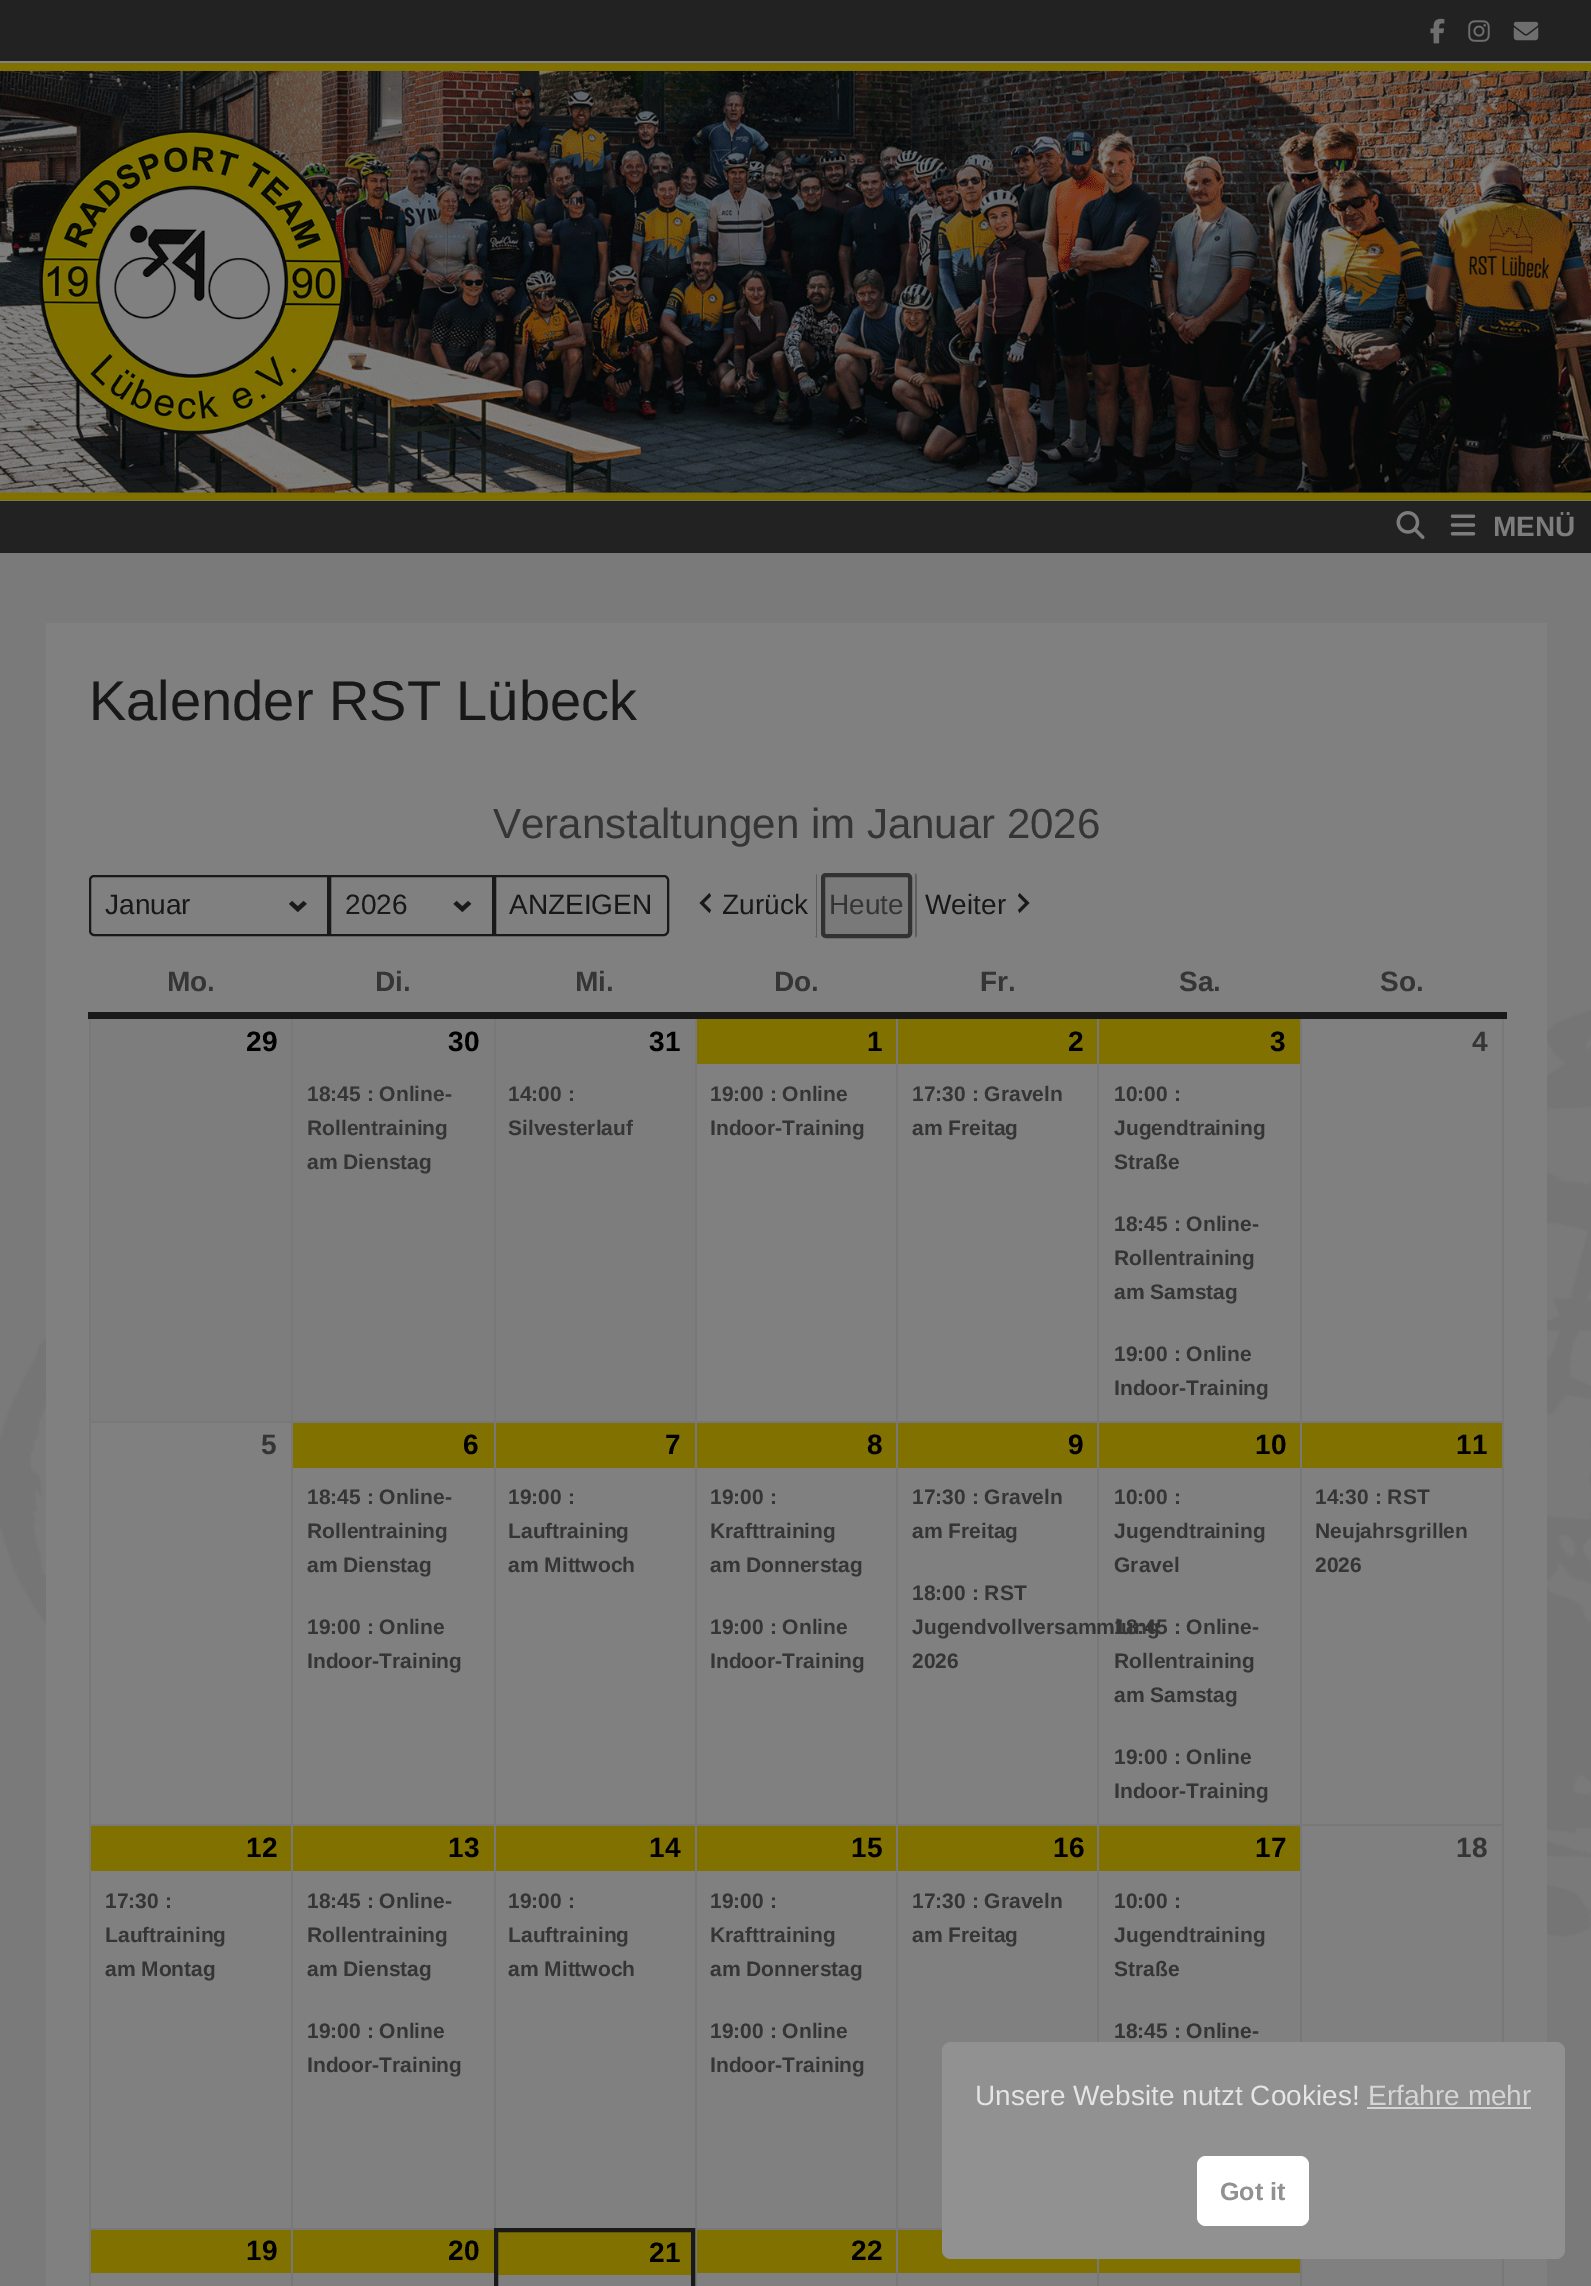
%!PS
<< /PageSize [1591 2286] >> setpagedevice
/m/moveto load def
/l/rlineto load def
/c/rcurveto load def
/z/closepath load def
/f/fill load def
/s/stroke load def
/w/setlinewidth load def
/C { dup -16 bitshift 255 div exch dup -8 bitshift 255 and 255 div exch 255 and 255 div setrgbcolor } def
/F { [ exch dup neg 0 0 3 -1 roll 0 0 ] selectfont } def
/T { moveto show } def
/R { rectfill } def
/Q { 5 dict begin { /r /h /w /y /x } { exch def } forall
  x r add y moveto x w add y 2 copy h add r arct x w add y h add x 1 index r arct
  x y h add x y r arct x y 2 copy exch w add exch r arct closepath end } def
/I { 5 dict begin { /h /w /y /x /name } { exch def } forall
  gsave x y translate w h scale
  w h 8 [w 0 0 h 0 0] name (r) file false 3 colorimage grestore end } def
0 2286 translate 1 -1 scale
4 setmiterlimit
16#808080 C
0 0 1591 2286 R
16#7A7A7A C
0 553 1591 1733 R
(1.rgb) 0 721 1591 1319 I
16#222222 C
0 0 1591 61 R
(2.rgb) 1430 18 15 26 I
(3.rgb) 1468 20 22 22 I
(4.rgb) 1513 21 26 20 I
(5.rgb) 0 63 1591 438 I
0 501 1591 52 R
(6.rgb) 1396 511 29 28 I
(7.rgb) 1450 514 26 22 I
/LiberationSans-Bold 28 F
16#7D7D7D C
(MENÜ) 1493 536 T
16#808080 C
46 623 1501 1663 R
/LiberationSans-Regular 56 F
16#181818 C
(Kalender RST Lübeck) 89 720 T
/LiberationSans-Regular 42 F
16#353535 C
(Veranstaltungen im Januar 2026) 493 838 T
(8.rgb) 289 900 18 12 I
16#19191A C
2 w
94 876 m 234 0 l 0 59 l -234 0 l -2 0 -4 -2 -4 -4 c 0 -51 l 0 -2 2 -4 4 -4 c z s
/LiberationSans-Regular 28 F
16#181818 C
(Januar) 105 914 T
(9.rgb) 453 900 19 12 I
16#19191A C
330 876 163 59 rectstroke
16#181818 C
(2026) 345 914 T
16#19191A C
495 876 m 169 0 l 2 0 4 2 4 4 c 0 51 l 0 2 -2 4 -4 4 c -169 0 l z s
16#181818 C
(ANZEIGEN) 509 914 T
16#5E5E5E C
817 874 m 0 64 l -2 -2 l 1 0 l 0 -61 l z f
16#19191A C
711 896 m -7 7 l 7 7 l -1.5 3 l -10 -10 l 10 -10 l z f
16#181818 C
(Zurück) 722 914 T
16#797979 C
821 873 91 65 5 Q f
16#323232 C
4 w
823 875 87 61 3 Q s
16#353535 C
(Heute) 829 914 T
16#5E5E5E C
917 875 m -2 -2 l 0 65 l 2 -2 l z f
16#181818 C
(Weiter) 925 914 T
16#19191A C
1018 910 m 7 -7 l -7 -7 l 1.5 -3 l 10 10 l -10 10 l z f
16#787878 C
1300 1421 203 2 R
1300 1824 203 2 R
1300 1824 2 218 R
1097 1824 205 2 R
1300 1421 2 404 R
1097 1421 205 2 R
1097 1824 2 218 R
896 1824 203 2 R
1097 1421 2 404 R
896 1421 203 2 R
896 2228 46 2 R
896 2228 2 58 R
695 2228 203 2 R
896 1824 2 406 R
695 1824 203 2 R
896 1421 2 404 R
695 1421 203 2 R
695 2228 2 58 R
695 1824 2 406 R
494 1824 203 2 R
695 1421 2 404 R
494 1421 203 2 R
291 2228 204 2 R
494 1824 2 406 R
291 1824 204 2 R
494 1421 2 404 R
291 1421 204 2 R
291 2228 2 58 R
89 2228 203 2 R
291 1824 2 406 R
89 1824 203 2 R
291 1421 2 404 R
89 1421 203 2 R
291 1015 2 408 R
494 1015 2 408 R
695 1015 2 408 R
896 1015 2 408 R
1097 1015 2 408 R
1300 1015 2 408 R
89 2228 2 58 R
89 1824 2 406 R
89 1015 2 810 R
1502 1824 2 218 R
1502 1015 2 810 R
16#19191A C
88 1012 1419 7 R
/LiberationSans-Bold 28 F
16#353535 C
(Mo.) 167 991 T
(Di.) 375 991 T
(Mi.) 575 991 T
(Do.) 774 991 T
(Fr.) 980 991 T
(Sa.) 1179 991 T
(So.) 1380 991 T
16#7D7D7D C
91 1019 200 402 R
16#000000 C
(29) 246 1051 T
16#7D7D7D C
293 1019 201 402 R
16#000000 C
(30) 448 1051 T
/LiberationSans-Bold 21 F
16#353535 C
(18:45 : Online-) 307 1101 T
(Rollentraining) 307 1135 T
(am Dienstag) 307 1169 T
16#7D7D7D C
496 1019 199 402 R
/LiberationSans-Bold 28 F
16#000000 C
(31) 649 1051 T
/LiberationSans-Bold 21 F
16#353535 C
(14:00 :) 508 1101 T
(Silvesterlauf) 508 1135 T
16#807100 C
697 1019 199 45 R
/LiberationSans-Bold 28 F
16#000000 C
(1) 867 1051 T
/LiberationSans-Bold 21 F
16#353535 C
(19:00 : Online) 710 1101 T
(Indoor-Training) 710 1135 T
16#807100 C
898 1019 199 45 R
/LiberationSans-Bold 28 F
16#000000 C
(2) 1068 1051 T
/LiberationSans-Bold 21 F
16#353535 C
(17:30 : Graveln) 912 1101 T
(am Freitag) 912 1135 T
16#807100 C
1099 1019 201 45 R
/LiberationSans-Bold 28 F
16#000000 C
(3) 1270 1051 T
/LiberationSans-Bold 21 F
16#353535 C
(10:00 :) 1114 1101 T
(Jugendtraining) 1114 1135 T
(Straße) 1114 1169 T
(18:45 : Online-) 1114 1231 T
(Rollentraining) 1114 1265 T
(am Samstag) 1114 1299 T
(19:00 : Online) 1114 1361 T
(Indoor-Training) 1114 1395 T
/LiberationSans-Bold 28 F
(4) 1472 1051 T
(5) 261 1454 T
16#807100 C
293 1423 201 45 R
16#000000 C
(6) 463 1454 T
/LiberationSans-Bold 21 F
16#353535 C
(18:45 : Online-) 307 1504 T
(Rollentraining) 307 1538 T
(am Dienstag) 307 1572 T
(19:00 : Online) 307 1634 T
(Indoor-Training) 307 1668 T
16#807100 C
496 1423 199 45 R
/LiberationSans-Bold 28 F
16#000000 C
(7) 665 1454 T
/LiberationSans-Bold 21 F
16#353535 C
(19:00 :) 508 1504 T
(Lauftraining) 508 1538 T
(am Mittwoch) 508 1572 T
16#807100 C
697 1423 199 45 R
/LiberationSans-Bold 28 F
16#000000 C
(8) 867 1454 T
/LiberationSans-Bold 21 F
16#353535 C
(19:00 :) 710 1504 T
(Krafttraining) 710 1538 T
(am Donnerstag) 710 1572 T
(19:00 : Online) 710 1634 T
(Indoor-Training) 710 1668 T
16#807100 C
898 1423 199 45 R
/LiberationSans-Bold 28 F
16#000000 C
(9) 1068 1454 T
/LiberationSans-Bold 21 F
16#353535 C
(17:30 : Graveln) 912 1504 T
(am Freitag) 912 1538 T
(18:00 : RST) 912 1600 T
(Jugendvollversammlung) 912 1634 T
(2026) 912 1668 T
16#807100 C
1099 1423 201 45 R
/LiberationSans-Bold 28 F
16#000000 C
(10) 1255 1454 T
/LiberationSans-Bold 21 F
16#353535 C
(10:00 :) 1114 1504 T
(Jugendtraining) 1114 1538 T
(Gravel) 1114 1572 T
(18:45 : Online-) 1114 1634 T
(Rollentraining) 1114 1668 T
(am Samstag) 1114 1702 T
(19:00 : Online) 1114 1764 T
(Indoor-Training) 1114 1798 T
16#807100 C
1302 1423 200 45 R
/LiberationSans-Bold 28 F
16#000000 C
(11) 1456 1454 T
/LiberationSans-Bold 21 F
16#353535 C
(14:30 : RST) 1315 1504 T
(Neujahrsgrillen) 1315 1538 T
(2026) 1315 1572 T
16#807100 C
91 1826 200 45 R
/LiberationSans-Bold 28 F
16#000000 C
(12) 246 1857 T
/LiberationSans-Bold 21 F
16#353535 C
(17:30 :) 105 1908 T
(Lauftraining) 105 1942 T
(am Montag) 105 1976 T
16#807100 C
293 1826 201 45 R
/LiberationSans-Bold 28 F
16#000000 C
(13) 448 1857 T
/LiberationSans-Bold 21 F
16#353535 C
(18:45 : Online-) 307 1908 T
(Rollentraining) 307 1942 T
(am Dienstag) 307 1976 T
(19:00 : Online) 307 2038 T
(Indoor-Training) 307 2072 T
16#807100 C
496 1826 199 45 R
/LiberationSans-Bold 28 F
16#000000 C
(14) 649 1857 T
/LiberationSans-Bold 21 F
16#353535 C
(19:00 :) 508 1908 T
(Lauftraining) 508 1942 T
(am Mittwoch) 508 1976 T
16#807100 C
697 1826 199 45 R
/LiberationSans-Bold 28 F
16#000000 C
(15) 851 1857 T
/LiberationSans-Bold 21 F
16#353535 C
(19:00 :) 710 1908 T
(Krafttraining) 710 1942 T
(am Donnerstag) 710 1976 T
(19:00 : Online) 710 2038 T
(Indoor-Training) 710 2072 T
16#807100 C
898 1826 199 45 R
/LiberationSans-Bold 28 F
16#000000 C
(16) 1053 1857 T
/LiberationSans-Bold 21 F
16#353535 C
(17:30 : Graveln) 912 1908 T
(am Freitag) 912 1942 T
16#807100 C
1099 1826 201 45 R
/LiberationSans-Bold 28 F
16#000000 C
(17) 1255 1857 T
/LiberationSans-Bold 21 F
16#353535 C
(10:00 :) 1114 1908 T
(Jugendtraining) 1114 1942 T
(Straße) 1114 1976 T
(18:45 : Online-) 1114 2038 T
/LiberationSans-Bold 28 F
(18) 1456 1857 T
16#807100 C
91 2230 200 43 R
16#000000 C
(19) 246 2260 T
16#807100 C
293 2230 201 43 R
16#000000 C
(20) 448 2260 T
16#807100 C
498 2232 193 43 R
16#19191A C
496 2230 197 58 rectstroke
16#000000 C
(21) 649 2262 T
16#807100 C
697 2230 199 43 R
16#000000 C
(22) 851 2260 T
16#807100 C
898 2230 199 43 R
16#787878 C
1097 2259 2 27 R
16#807100 C
1099 2259 201 14 R
16#787878 C
1502 2259 2 27 R
1300 2259 2 27 R
16#919191 C
942 2042 623 217 9 Q f
/LiberationSans-Regular 28 F
16#E5E5E5 C
(Unsere Website nutzt Cookies!) 975 2105 T
16#D4D4D4 C
(Erfahre mehr) 1368 2105 T
1367 2107 164 2 R
16#FFFFFF C
1197 2156 112 70 9 Q f
/LiberationSans-Bold 25 F
16#919191 C
(Got it) 1220 2200 T
showpage
